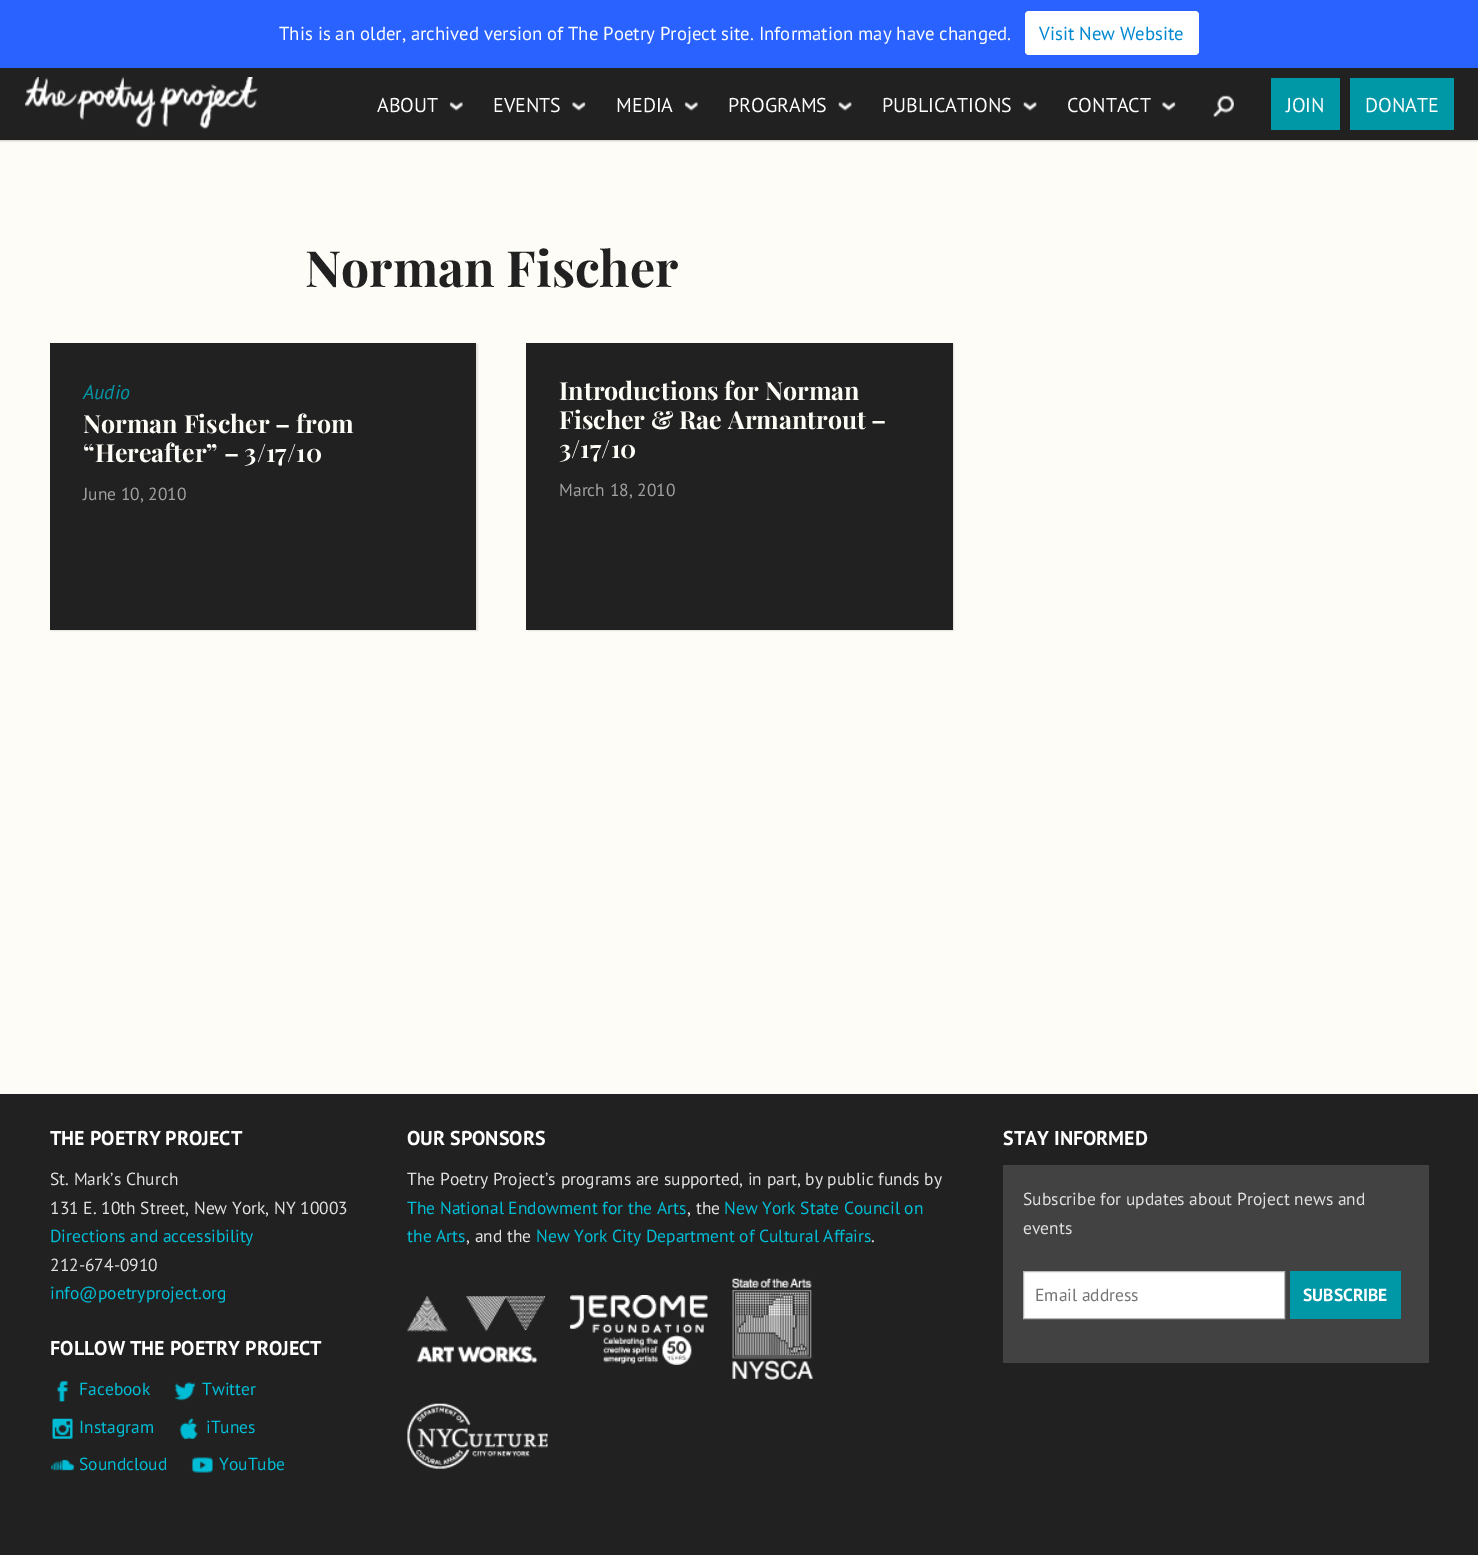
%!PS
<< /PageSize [1478 1555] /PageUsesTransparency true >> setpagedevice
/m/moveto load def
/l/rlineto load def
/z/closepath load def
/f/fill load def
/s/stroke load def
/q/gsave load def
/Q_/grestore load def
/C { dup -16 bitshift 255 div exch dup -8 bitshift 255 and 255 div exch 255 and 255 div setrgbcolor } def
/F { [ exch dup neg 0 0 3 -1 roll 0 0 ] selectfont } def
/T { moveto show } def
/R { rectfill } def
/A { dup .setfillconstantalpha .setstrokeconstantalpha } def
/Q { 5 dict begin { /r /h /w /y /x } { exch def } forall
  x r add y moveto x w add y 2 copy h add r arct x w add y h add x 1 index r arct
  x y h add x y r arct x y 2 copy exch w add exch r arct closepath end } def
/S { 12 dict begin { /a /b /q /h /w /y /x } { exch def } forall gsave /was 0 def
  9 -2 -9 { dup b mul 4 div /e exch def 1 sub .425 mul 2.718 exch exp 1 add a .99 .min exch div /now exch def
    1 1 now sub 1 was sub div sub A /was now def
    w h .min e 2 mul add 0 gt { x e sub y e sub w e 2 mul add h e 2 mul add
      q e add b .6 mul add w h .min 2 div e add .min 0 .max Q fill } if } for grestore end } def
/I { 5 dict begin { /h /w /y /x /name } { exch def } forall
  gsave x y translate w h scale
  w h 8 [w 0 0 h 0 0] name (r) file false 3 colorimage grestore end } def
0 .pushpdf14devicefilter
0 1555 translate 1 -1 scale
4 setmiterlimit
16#FDFCF6 C
0 0 1478 1555 R
16#2962FF C
0 0 1478 68 R
/PTSans-Regular 18.75 F
16#FFFFFF C
(This is an older, archived version of The Poetry Project site. Information may have changed.) 279 40 T
1025 11 174 44 4 Q f
16#0288D1 C
(Visit New Website) 1039 40 T
16#000000 C
0 69 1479 72 0 1 .2 S
16#212121 C
0 68 1478 72 R
(1.rgb) 25 77 233 53 I
/PTSans-Regular 20 F
16#FFFFFF C
(ABOUT) 377 112 T
(2.rgb) 449 102 14 9 I
(EVENTS) 493 112 T
(3.rgb) 572 102 14 9 I
(MEDIA) 616 112 T
(4.rgb) 684 102 14 9 I
(PROGRAMS) 728 112 T
(5.rgb) 838 102 14 9 I
(PUBLICATIONS) 882 112 T
(5.rgb) 1023 102 14 9 I
(CONTACT) 1067 112 T
(3.rgb) 1162 102 14 9 I
(6.rgb) 1213 95 21 22 I
16#0097A7 C
1271 78 69 52 R
16#FFFFFF C
(JOIN) 1286 112 T
16#0097A7 C
1350 78 104 52 R
16#FFFFFF C
(DONATE) 1365 112 T
/PlayfairDisplay-Bold 50 F
16#212121 C
(Norman Fischer) 305 287 T
16#000000 C
51 344 427 287 0 .5 .1 S
16#212121 C
50 343 426 287 R
/PTSans-Italic 20 F
16#0097A7 C
(Audio) 83 399 T
/PlayfairDisplay-Bold 25 F
16#FDFCF6 C
(Norman Fischer – from) 83 433 T
(“Hereafter” – 3/17/10) 83 462 T
/PTSans-Regular 17.5 F
16#A0A0A0 C
(June 10, 2010) 83 500 T
16#000000 C
528 344 426 287 0 .5 .1 S
16#212121 C
526 343 427 287 R
/PlayfairDisplay-Bold 25 F
16#FDFCF6 C
(Introductions for Norman) 559 400 T
(Fischer & Rae Armantrout –) 559 429 T
(3/17/10) 559 458 T
/PTSans-Regular 17.5 F
16#A0A0A0 C
(March 18, 2010) 559 496 T
16#212121 C
0 1094 1478 461 R
/PTSans-Bold 20 F
16#FFFFFF C
(THE POETRY PROJECT) 50 1145 T
/PTSans-Regular 17.5 F
16#E0E0E0 C
(St. Mark’s Church) 50 1185 T
(131 E. 10th Street, New York, NY 10003) 50 1214 T
16#00BCD4 C
(Directions and accessibility) 50 1242 T
16#E0E0E0 C
(212-674-0910) 50 1271 T
16#00BCD4 C
(info@poetryproject.org) 50 1299 T
/PTSans-Bold 20 F
16#FFFFFF C
(FOLLOW THE POETRY PROJECT) 50 1355 T
(7.rgb) 57 1381 11 21 I
/PTSans-Regular 17.5 F
16#00BCD4 C
(Facebook) 79 1395 T
(8.rgb) 174 1382 22 19 I
(Twitter) 202 1395 T
(9.rgb) 52 1418 21 21 I
(Instagram) 79 1433 T
(10.rgb) 179 1418 19 22 I
(iTunes) 206 1433 T
(11.rgb) 51 1459 24 12 I
(Soundcloud) 79 1470 T
(12.rgb) 191 1457 22 16 I
(YouTube) 219 1470 T
/PTSans-Bold 20 F
16#FFFFFF C
(OUR SPONSORS) 407 1145 T
/PTSans-Regular 17.5 F
16#E0E0E0 C
(The Poetry Project’s programs are supported, in part, by public funds by) 407 1185 T
16#00BCD4 C
(The National Endowment for the Arts) 407 1214 T
16#E0E0E0 C
(, the) 687 1214 T
16#00BCD4 C
(New York State Council on) 724 1214 T
(the Arts) 407 1242 T
16#E0E0E0 C
(, and the) 466 1242 T
16#00BCD4 C
(New York City Department of Cultural Affairs) 536 1242 T
16#E0E0E0 C
(.) 871 1242 T
(13.rgb) 407 1296 138 67 I
(14.rgb) 570 1295 138 70 I
(15.rgb) 732 1278 81 102 I
(16.rgb) 407 1403 141 66 I
/PTSans-Bold 20 F
16#FFFFFF C
(STAY INFORMED) 1003 1145 T
16#424242 C
1003 1165 426 198 R
/PTSans-Regular 17.5 F
16#E0E0E0 C
(Subscribe for updates about Project news and) 1023 1205 T
(events) 1023 1234 T
16#FFFFFF C
1023.5 1271.5 m 261 0 l 0 47 l -261 0 l z q f Q_
16#B6B6B6 C
s
16#757575 C
(Email address) 1035 1301 T
16#0097A7 C
1290 1271 111 48 R
/PTSans-Bold 17.5 F
16#FFFFFF C
(SUBSCRIBE) 1303 1301 T
.poppdf14devicefilter showpage
